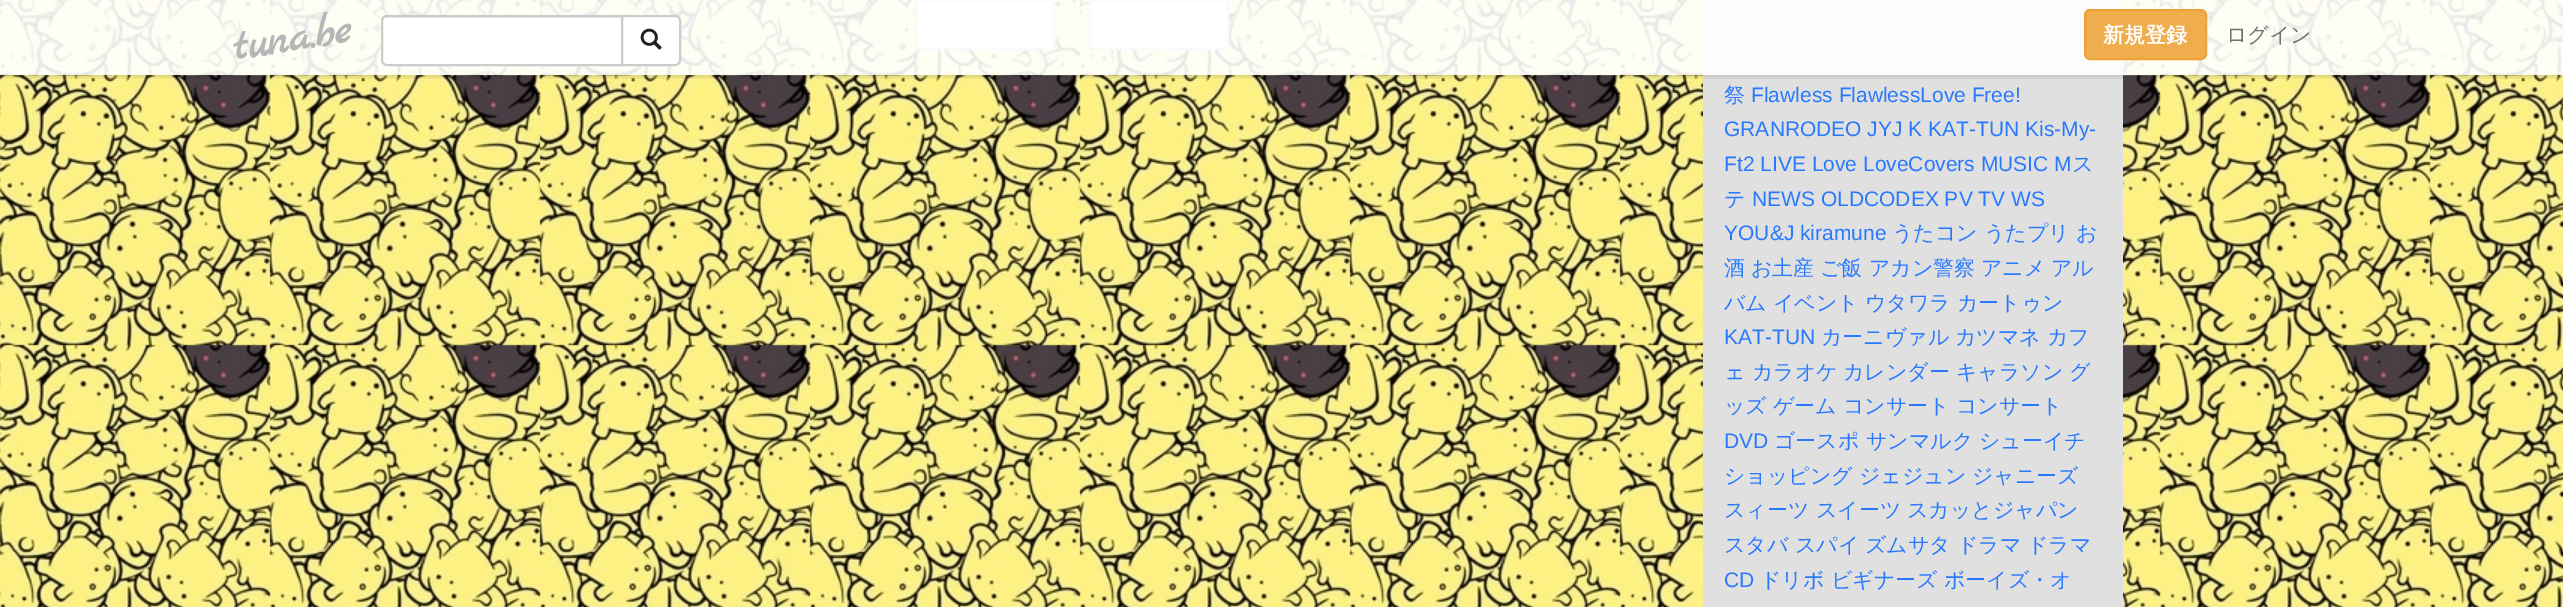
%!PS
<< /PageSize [2563 607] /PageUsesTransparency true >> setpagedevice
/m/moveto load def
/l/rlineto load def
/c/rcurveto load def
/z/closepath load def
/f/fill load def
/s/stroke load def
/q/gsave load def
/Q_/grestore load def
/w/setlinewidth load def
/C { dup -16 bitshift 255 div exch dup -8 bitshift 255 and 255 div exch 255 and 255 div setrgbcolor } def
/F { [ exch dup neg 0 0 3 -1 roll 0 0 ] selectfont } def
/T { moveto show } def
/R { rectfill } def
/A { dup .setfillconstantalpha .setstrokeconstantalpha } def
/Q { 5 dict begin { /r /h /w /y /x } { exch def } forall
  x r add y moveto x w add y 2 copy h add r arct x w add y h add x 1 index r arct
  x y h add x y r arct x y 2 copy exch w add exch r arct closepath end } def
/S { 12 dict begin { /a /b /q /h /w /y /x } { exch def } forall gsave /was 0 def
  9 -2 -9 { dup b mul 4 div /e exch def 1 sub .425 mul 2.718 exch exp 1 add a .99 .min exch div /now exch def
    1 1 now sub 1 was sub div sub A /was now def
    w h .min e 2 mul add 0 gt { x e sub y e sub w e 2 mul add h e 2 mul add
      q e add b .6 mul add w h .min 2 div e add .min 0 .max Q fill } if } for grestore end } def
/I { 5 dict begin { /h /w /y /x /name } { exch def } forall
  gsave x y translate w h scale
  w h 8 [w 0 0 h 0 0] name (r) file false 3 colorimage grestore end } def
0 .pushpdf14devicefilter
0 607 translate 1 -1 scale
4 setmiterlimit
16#FFFFFF C
0 0 2563 607 R
(1.rgb) 0 0 2563 607 I
916 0 138 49 5 Q q f Q_
16#CCCCCC C
2 w
s
16#FFFFFF C
1090 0 138 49 5 Q q f Q_
16#CCCCCC C
s
16#E0E0E0 C
1703 0 420 607 R
q
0 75 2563 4 rectclip
16#000000 C
0 3 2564 75 0 1.5 .1 S
Q_
0.9 A
16#FFFFFF C
0 0 2563 75 R
/MarckScript-Bold 45 F
1 A
16#B6B6B6 C
q 235 60 translate -9 rotate 0 0 m (tuna.be) show Q_
16#FFFFFF C
387 15 m 236 0 l 0 51 l -236 0 l -3.5 0 -6 -2.5 -6 -6 c 0 -39 l 0 -3.5 2.5 -6 6 -6 c z f
16#ECECEC C
387 18 m 234 0 l 0 -1 l -233 0 l -2 0 -3 1 -4 2 c z f
16#CCCCCC C
387 16 m 235 0 l 0 49 l -235 0 l -3 0 -5 -2 -5 -5 c 0 -39 l 0 -3 2 -5 5 -5 c z s
16#FFFFFF C
622 16 m 53 0 l 3 0 5 2 5 5 c 0 39 l 0 3 -2 5 -5 5 c -53 0 l z q f Q_
16#CCCCCC C
s
(2.rgb) 640 28 22 22 I
16#F0AD4E C
2085 10 121 49 5 Q q f Q_
16#EEA236 C
s
/WenQuanYiZenHei-Bold 21 F
16#FFFFFF C
(新規登録) 2103 42 T
/WenQuanYiZenHei-Medium 21 F
16#727272 C
(ログイン) 2226 42 T
16#2979FF C
(祭) 1724 102 T
/LiberationSans-Regular 21 F
(Flawless FlawlessLove Free!) 1751 102 T
(GRANRODEO JYJ K KAT-TUN Kis-My-) 1724 136 T
(Ft2 LIVE Love LoveCovers MUSIC M) 1724 171 T
/WenQuanYiZenHei-Medium 21 F
(ス) 2072 171 T
(テ) 1724 206 T
/LiberationSans-Regular 21 F
(NEWS OLDCODEX PV TV WS) 1752 206 T
(YOU&J kiramune) 1724 240 T
/WenQuanYiZenHei-Medium 21 F
(うたコン) 1892 240 T
(うたプリ) 1984 240 T
(お) 2076 240 T
(酒) 1724 275 T
(お土産) 1751 275 T
(ご飯) 1820 275 T
(アカン警察) 1869 275 T
(アニメ) 1981 275 T
(アル) 2051 275 T
(バム) 1724 310 T
(イベント) 1773 310 T
(ウタワラ) 1865 310 T
(カートゥン) 1957 310 T
/LiberationSans-Regular 21 F
(KAT-TUN) 1724 344 T
/WenQuanYiZenHei-Medium 21 F
(カーニヴァル) 1821 344 T
(カツマネ) 1955 344 T
(カフ) 2047 344 T
(ェ) 1724 379 T
(カラオケ) 1752 379 T
(カレンダー) 1843 379 T
(キャラソン) 1956 379 T
(グ) 2069 379 T
(ッズ) 1724 413 T
(ゲーム) 1773 413 T
(コンサート) 1843 413 T
(コンサート) 1956 413 T
/LiberationSans-Regular 21 F
(DVD) 1724 448 T
/WenQuanYiZenHei-Medium 21 F
(ゴースポ) 1774 448 T
(サンマルク) 1866 448 T
(シューイチ) 1979 448 T
(ショッピング) 1724 483 T
(ジェジュン) 1859 483 T
(ジャニーズ) 1972 483 T
(スィーツ) 1724 517 T
(スイーツ) 1816 517 T
(スカッとジャパン) 1907 517 T
(スタバ) 1724 552 T
(スパイ) 1795 552 T
(ズムサタ) 1865 552 T
(ドラマ) 1957 552 T
(ドラマ) 2027 552 T
/LiberationSans-Regular 21 F
(CD) 1724 587 T
/WenQuanYiZenHei-Medium 21 F
(ドリボ) 1760 587 T
(ビギナーズ) 1831 587 T
(ボーイズ・オ) 1944 587 T
.poppdf14devicefilter showpage
